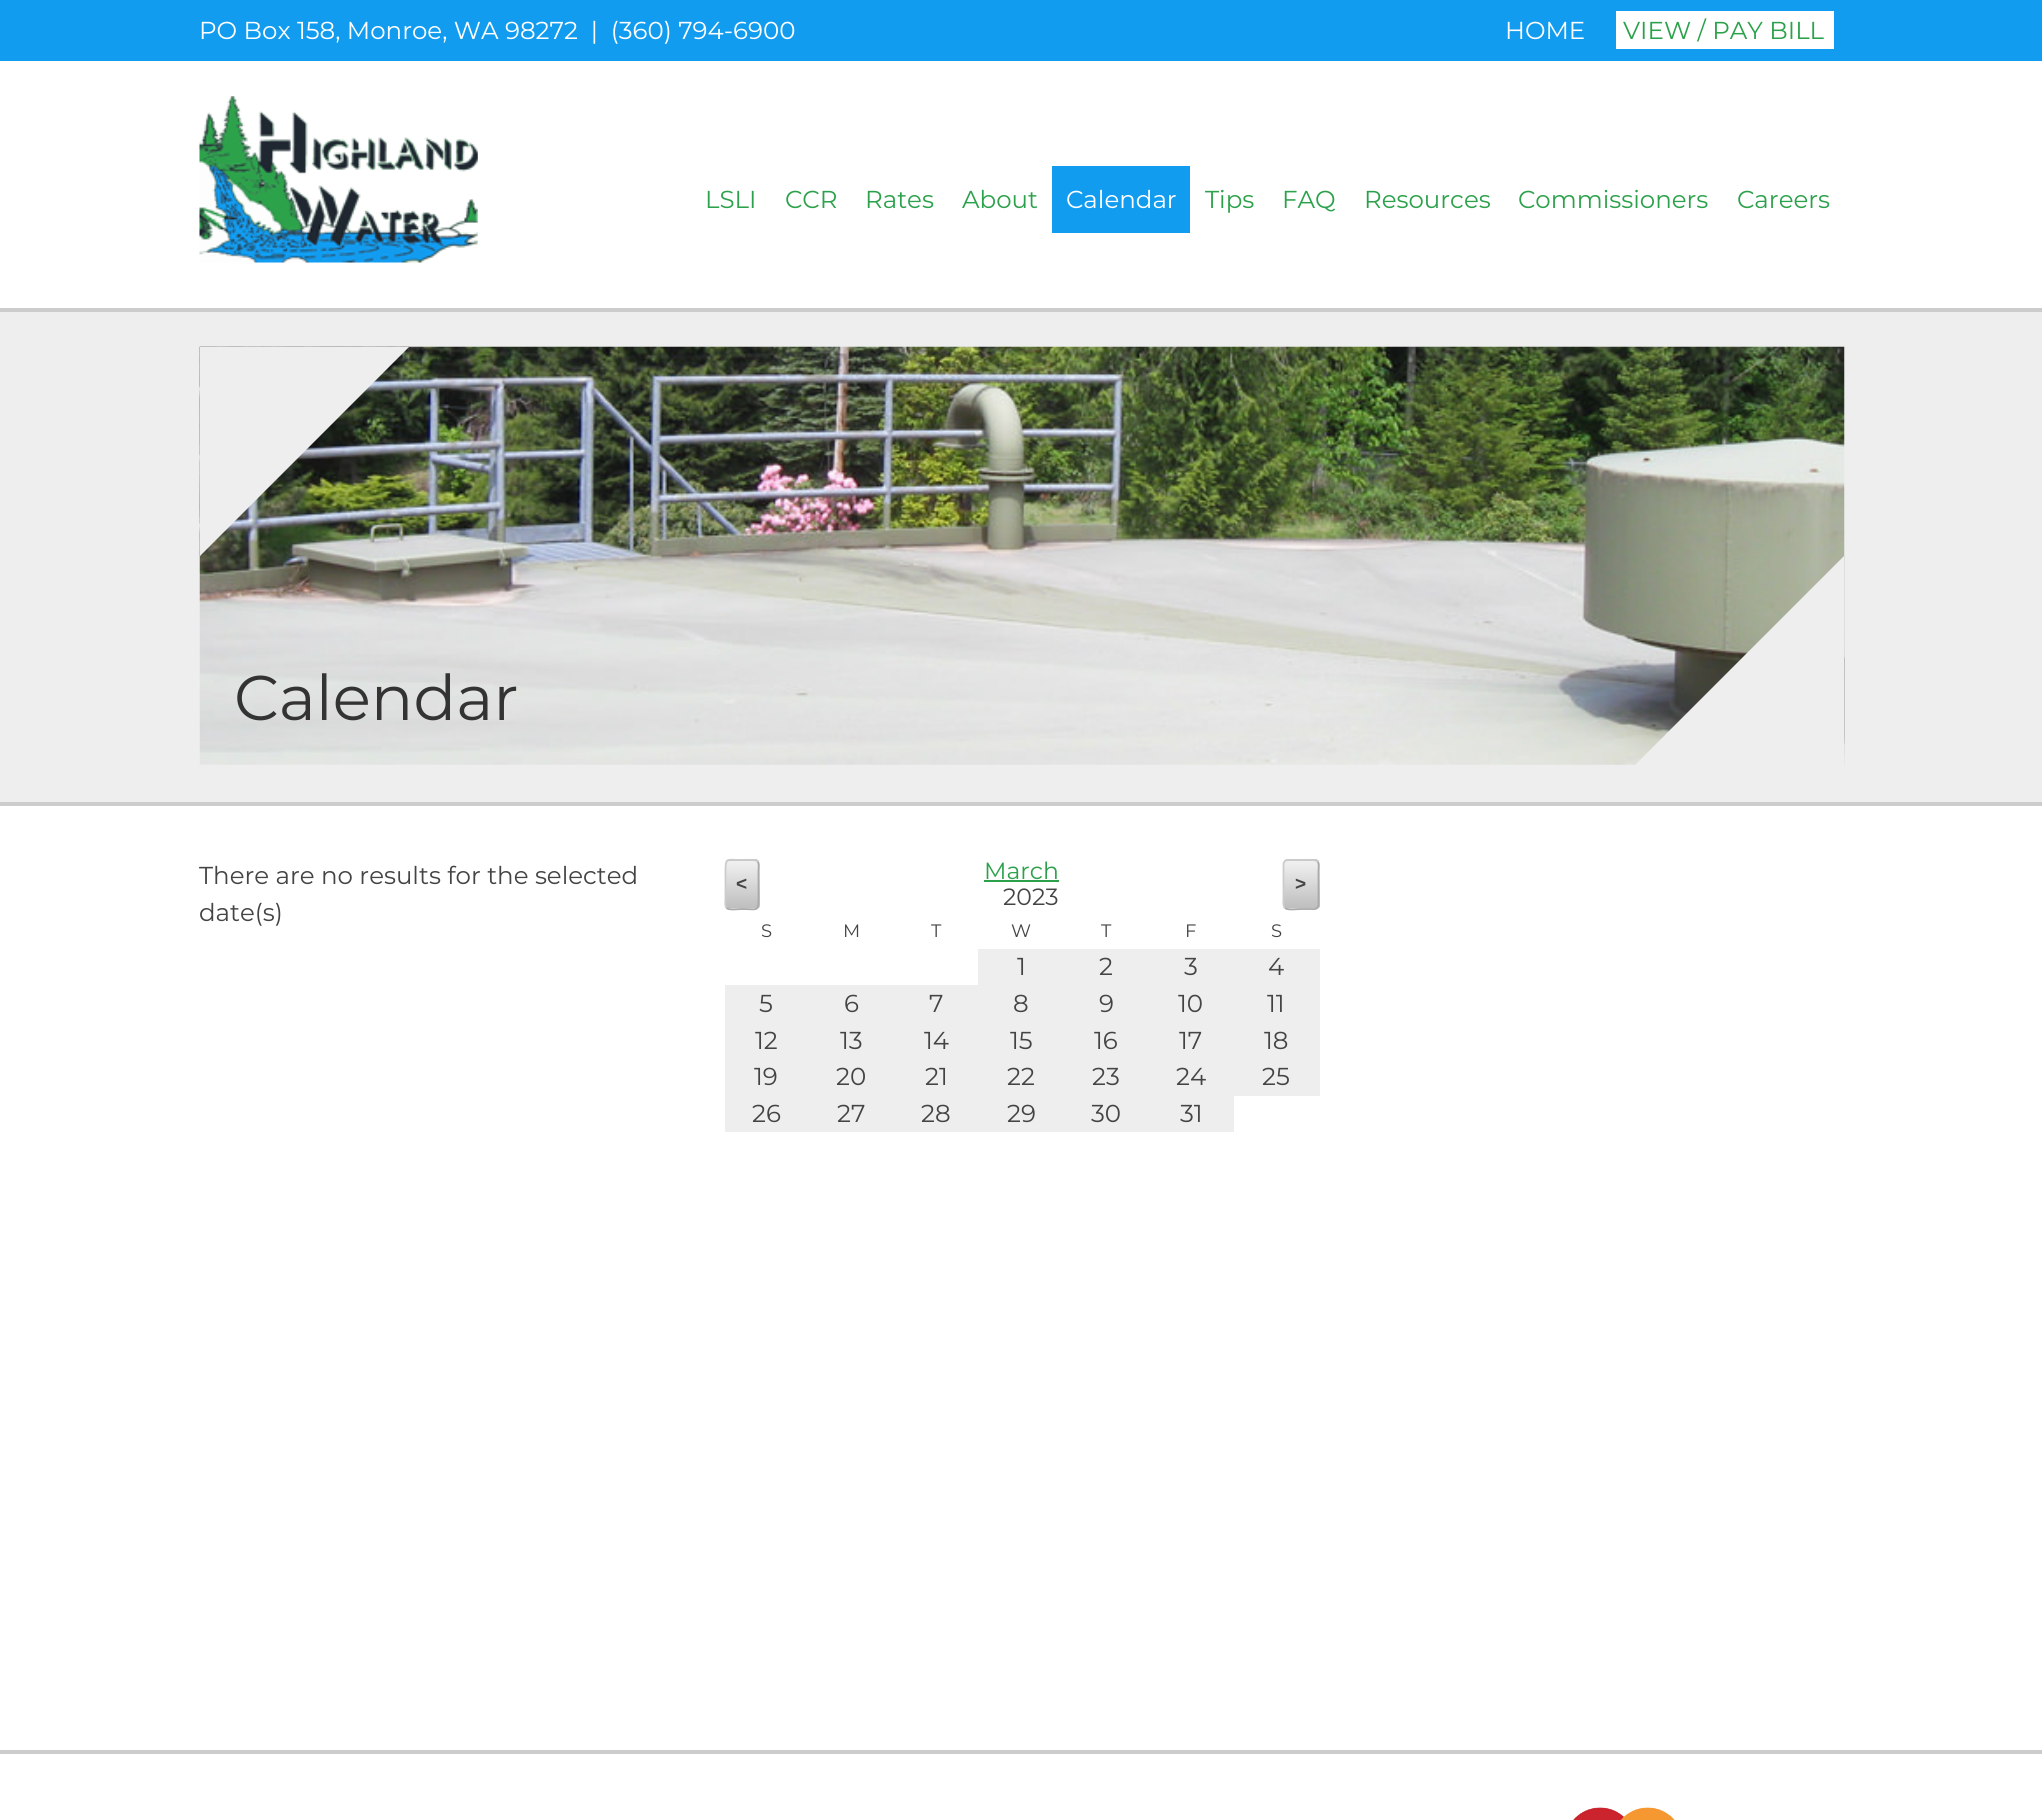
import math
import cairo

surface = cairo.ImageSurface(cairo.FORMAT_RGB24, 2042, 1820)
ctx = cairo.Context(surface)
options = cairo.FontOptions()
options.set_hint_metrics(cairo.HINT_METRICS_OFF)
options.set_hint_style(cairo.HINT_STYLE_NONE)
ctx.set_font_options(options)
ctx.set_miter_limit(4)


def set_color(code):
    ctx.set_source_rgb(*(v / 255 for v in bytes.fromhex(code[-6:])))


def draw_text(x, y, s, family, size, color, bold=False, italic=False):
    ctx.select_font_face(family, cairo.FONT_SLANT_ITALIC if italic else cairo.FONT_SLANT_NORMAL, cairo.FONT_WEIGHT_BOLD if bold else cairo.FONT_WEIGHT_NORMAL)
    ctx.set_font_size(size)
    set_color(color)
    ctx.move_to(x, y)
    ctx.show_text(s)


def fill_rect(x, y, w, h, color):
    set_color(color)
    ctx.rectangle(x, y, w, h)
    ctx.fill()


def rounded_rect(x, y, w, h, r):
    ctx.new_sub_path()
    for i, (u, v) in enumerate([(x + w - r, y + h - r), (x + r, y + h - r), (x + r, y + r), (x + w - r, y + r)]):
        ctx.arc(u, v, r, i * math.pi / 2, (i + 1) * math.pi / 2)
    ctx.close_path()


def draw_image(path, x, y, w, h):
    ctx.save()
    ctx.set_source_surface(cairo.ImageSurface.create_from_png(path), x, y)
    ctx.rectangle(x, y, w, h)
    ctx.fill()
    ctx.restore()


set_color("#ffffff")
ctx.paint()
fill_rect(0, 0, 2042, 61, "#129cf0")
draw_text(199, 39, "PO Box 158, Monroe, WA 98272  |  (360) 794-6900", "Montserrat", 24.5, "#ffffff")
draw_text(1505, 39, "HOME", "Montserrat", 24.5, "#ffffff")
fill_rect(1616, 11, 218, 38, "#ffffff")
draw_text(1623, 39, "VIEW / PAY BILL", "Montserrat", 24.5, "#2ca14b")
fill_rect(0, 308, 2042, 4, "#cccccc")
draw_image("assets/img1.png", 199, 96, 279, 167)
draw_text(705, 208, "LSLI", "Montserrat", 24.5, "#2ca14b")
draw_text(785, 208, "CCR", "Montserrat", 24.5, "#2ca14b")
draw_text(865, 208, "Rates", "Montserrat", 24.5, "#2ca14b")
draw_text(962, 208, "About", "Montserrat", 24.5, "#2ca14b")
fill_rect(1052, 166, 138, 67, "#129cf0")
draw_text(1066, 208, "Calendar", "Montserrat", 24.5, "#ffffff")
draw_text(1205, 208, "Tips", "Montserrat", 24.5, "#2ca14b")
draw_text(1282, 208, "FAQ", "Montserrat", 24.5, "#2ca14b")
draw_text(1364, 208, "Resources", "Montserrat", 24.5, "#2ca14b")
draw_text(1518, 208, "Commissioners", "Montserrat", 24.5, "#2ca14b")
draw_text(1737, 208, "Careers", "Montserrat", 24.5, "#2ca14b")
fill_rect(0, 312, 2042, 490, "#eeeeee")
fill_rect(0, 802, 2042, 4, "#cccccc")
draw_image("assets/img2.png", 199, 346, 1646, 419)
ctx.save()
ctx.rectangle(200, 347, 1645, 420)
ctx.clip()
set_color("#eeeeee")
ctx.new_path()
ctx.move_to(200, 346)
ctx.line_to(410, 346)
ctx.line_to(200, 556)
ctx.close_path()
ctx.fill()
ctx.restore()
draw_text(234, 720, "Calendar", "Montserrat", 63, "#333333")
set_color("#eeeeee")
ctx.new_path()
ctx.move_to(1844, 766)
ctx.line_to(1634, 766)
ctx.line_to(1844, 556)
ctx.close_path()
ctx.fill()
draw_text(199, 884, "There are no results for the selected", "Montserrat", 24.5, "#444444")
draw_text(199, 921, "date(s)", "Montserrat", 24.5, "#444444")
set_color("#eeeeee")
rounded_rect(725, 859, 35, 51, 5)
ctx.fill()
ctx.save()
rounded_rect(725, 859, 35, 51, 5)
ctx.clip()
gradient = cairo.LinearGradient(742, 814, 742, 861)
gradient.add_color_stop_rgba(0, 1, 1, 1, 0.2)
gradient.add_color_stop_rgba(1, 0, 0, 0, 0.2)
ctx.set_source(gradient)
ctx.rectangle(725, 859, 35, 2)
ctx.fill()
gradient = cairo.LinearGradient(742, 861, 742, 908)
gradient.add_color_stop_rgba(0, 1, 1, 1, 0.2)
gradient.add_color_stop_rgba(1, 0, 0, 0, 0.2)
ctx.set_source(gradient)
ctx.rectangle(725, 861, 35, 47)
ctx.fill()
ctx.restore()
ctx.new_path()
ctx.move_to(757.5, 861.5)
ctx.curve_to(759.5, 863.5, 758.5, 869, 758.5, 871)
ctx.line_to(758.5, 898)
ctx.curve_to(758.5, 912.5, 757, 909, 742, 909)
ctx.curve_to(739, 909, 729, 910.5, 726.5, 908)
set_color("#aaaaaa")
ctx.set_line_width(1.8)
ctx.stroke()
ctx.new_path()
ctx.move_to(726.5, 908)
ctx.curve_to(724.5, 905.5, 725.5, 900.5, 725.5, 898)
ctx.line_to(725.5, 871)
ctx.curve_to(725.5, 857, 727, 860, 742, 860)
ctx.curve_to(745, 860, 755, 859, 757.5, 861.5)
set_color("#cccccc")
ctx.stroke()
draw_text(736, 890, "<", "Liberation Sans", 19, "#444444", bold=True)
draw_text(984, 879, "March", "Montserrat", 23.5, "#2ca14b")
fill_rect(984, 880, 75, 2, "#2ca04b")
draw_text(1003, 905, "2023", "Montserrat", 23.5, "#444444")
set_color("#eeeeee")
rounded_rect(1283, 859, 37, 51, 5)
ctx.fill()
ctx.save()
rounded_rect(1283, 859, 37, 51, 5)
ctx.clip()
gradient = cairo.LinearGradient(1301, 814, 1301, 861)
gradient.add_color_stop_rgba(0, 1, 1, 1, 0.2)
gradient.add_color_stop_rgba(1, 0, 0, 0, 0.2)
ctx.set_source(gradient)
ctx.rectangle(1283, 859, 37, 2)
ctx.fill()
gradient = cairo.LinearGradient(1301, 861, 1301, 908)
gradient.add_color_stop_rgba(0, 1, 1, 1, 0.2)
gradient.add_color_stop_rgba(1, 0, 0, 0, 0.2)
ctx.set_source(gradient)
ctx.rectangle(1283, 861, 37, 47)
ctx.fill()
ctx.restore()
ctx.new_path()
ctx.move_to(1317.5, 861.5)
ctx.curve_to(1319.5, 863.5, 1318.5, 869, 1318.5, 871)
ctx.line_to(1318.5, 905.5)
ctx.curve_to(1317.5, 910, 1313, 909, 1310, 909)
ctx.line_to(1301, 909)
ctx.curve_to(1298, 909, 1287.5, 910.5, 1285, 908)
set_color("#aaaaaa")
ctx.stroke()
ctx.new_path()
ctx.move_to(1285, 908)
ctx.curve_to(1282.5, 905.5, 1283.5, 900.5, 1283.5, 898)
ctx.line_to(1283.5, 863.5)
ctx.curve_to(1284.5, 859.5, 1289, 860, 1292.5, 860)
ctx.line_to(1301, 860)
ctx.curve_to(1304.5, 860, 1314.5, 859, 1317.5, 861.5)
set_color("#cccccc")
ctx.stroke()
draw_text(1295, 890, ">", "Liberation Sans", 19, "#444444", bold=True)
draw_text(761, 937, "S", "Montserrat", 18, "#444444")
draw_text(843, 937, "M", "Montserrat", 18, "#444444")
draw_text(931, 937, "T", "Montserrat", 18, "#444444")
draw_text(1011, 937, "W", "Montserrat", 18, "#444444")
draw_text(1101, 937, "T", "Montserrat", 18, "#444444")
draw_text(1185, 937, "F", "Montserrat", 18, "#444444")
draw_text(1271, 937, "S", "Montserrat", 18, "#444444")
fill_rect(978, 949, 342, 36, "#eeeeee")
draw_text(1017, 975, "1", "Montserrat", 24.5, "#444444")
draw_text(1099, 975, "2", "Montserrat", 24.5, "#444444")
draw_text(1184, 975, "3", "Montserrat", 24.5, "#444444")
draw_text(1268, 975, "4", "Montserrat", 24.5, "#444444")
fill_rect(725, 985, 595, 37, "#eeeeee")
draw_text(759, 1012, "5", "Montserrat", 24.5, "#444444")
draw_text(844, 1012, "6", "Montserrat", 24.5, "#444444")
draw_text(929, 1012, "7", "Montserrat", 24.5, "#444444")
draw_text(1013, 1012, "8", "Montserrat", 24.5, "#444444")
draw_text(1099, 1012, "9", "Montserrat", 24.5, "#444444")
draw_text(1178, 1012, "10", "Montserrat", 24.5, "#444444")
draw_text(1267, 1012, "11", "Montserrat", 24.5, "#444444")
fill_rect(725, 1022, 595, 37, "#eeeeee")
draw_text(755, 1049, "12", "Montserrat", 24.5, "#444444")
draw_text(840, 1049, "13", "Montserrat", 24.5, "#444444")
draw_text(924, 1049, "14", "Montserrat", 24.5, "#444444")
draw_text(1010, 1049, "15", "Montserrat", 24.5, "#444444")
draw_text(1094, 1049, "16", "Montserrat", 24.5, "#444444")
draw_text(1179, 1049, "17", "Montserrat", 24.5, "#444444")
draw_text(1264, 1049, "18", "Montserrat", 24.5, "#444444")
fill_rect(725, 1059, 595, 37, "#eeeeee")
draw_text(754, 1085, "19", "Montserrat", 24.5, "#444444")
draw_text(836, 1085, "20", "Montserrat", 24.5, "#444444")
draw_text(925, 1085, "21", "Montserrat", 24.5, "#444444")
draw_text(1007, 1085, "22", "Montserrat", 24.5, "#444444")
draw_text(1092, 1085, "23", "Montserrat", 24.5, "#444444")
draw_text(1176, 1085, "24", "Montserrat", 24.5, "#444444")
draw_text(1262, 1085, "25", "Montserrat", 24.5, "#444444")
fill_rect(725, 1096, 509, 36, "#eeeeee")
draw_text(752, 1122, "26", "Montserrat", 24.5, "#444444")
draw_text(837, 1122, "27", "Montserrat", 24.5, "#444444")
draw_text(921, 1122, "28", "Montserrat", 24.5, "#444444")
draw_text(1007, 1122, "29", "Montserrat", 24.5, "#444444")
draw_text(1091, 1122, "30", "Montserrat", 24.5, "#444444")
draw_text(1180, 1122, "31", "Montserrat", 24.5, "#444444")
fill_rect(0, 1750, 2042, 4, "#cccccc")
draw_image("assets/img3.png", 1573, 1807, 102, 13)
surface.write_to_png("output.png")
